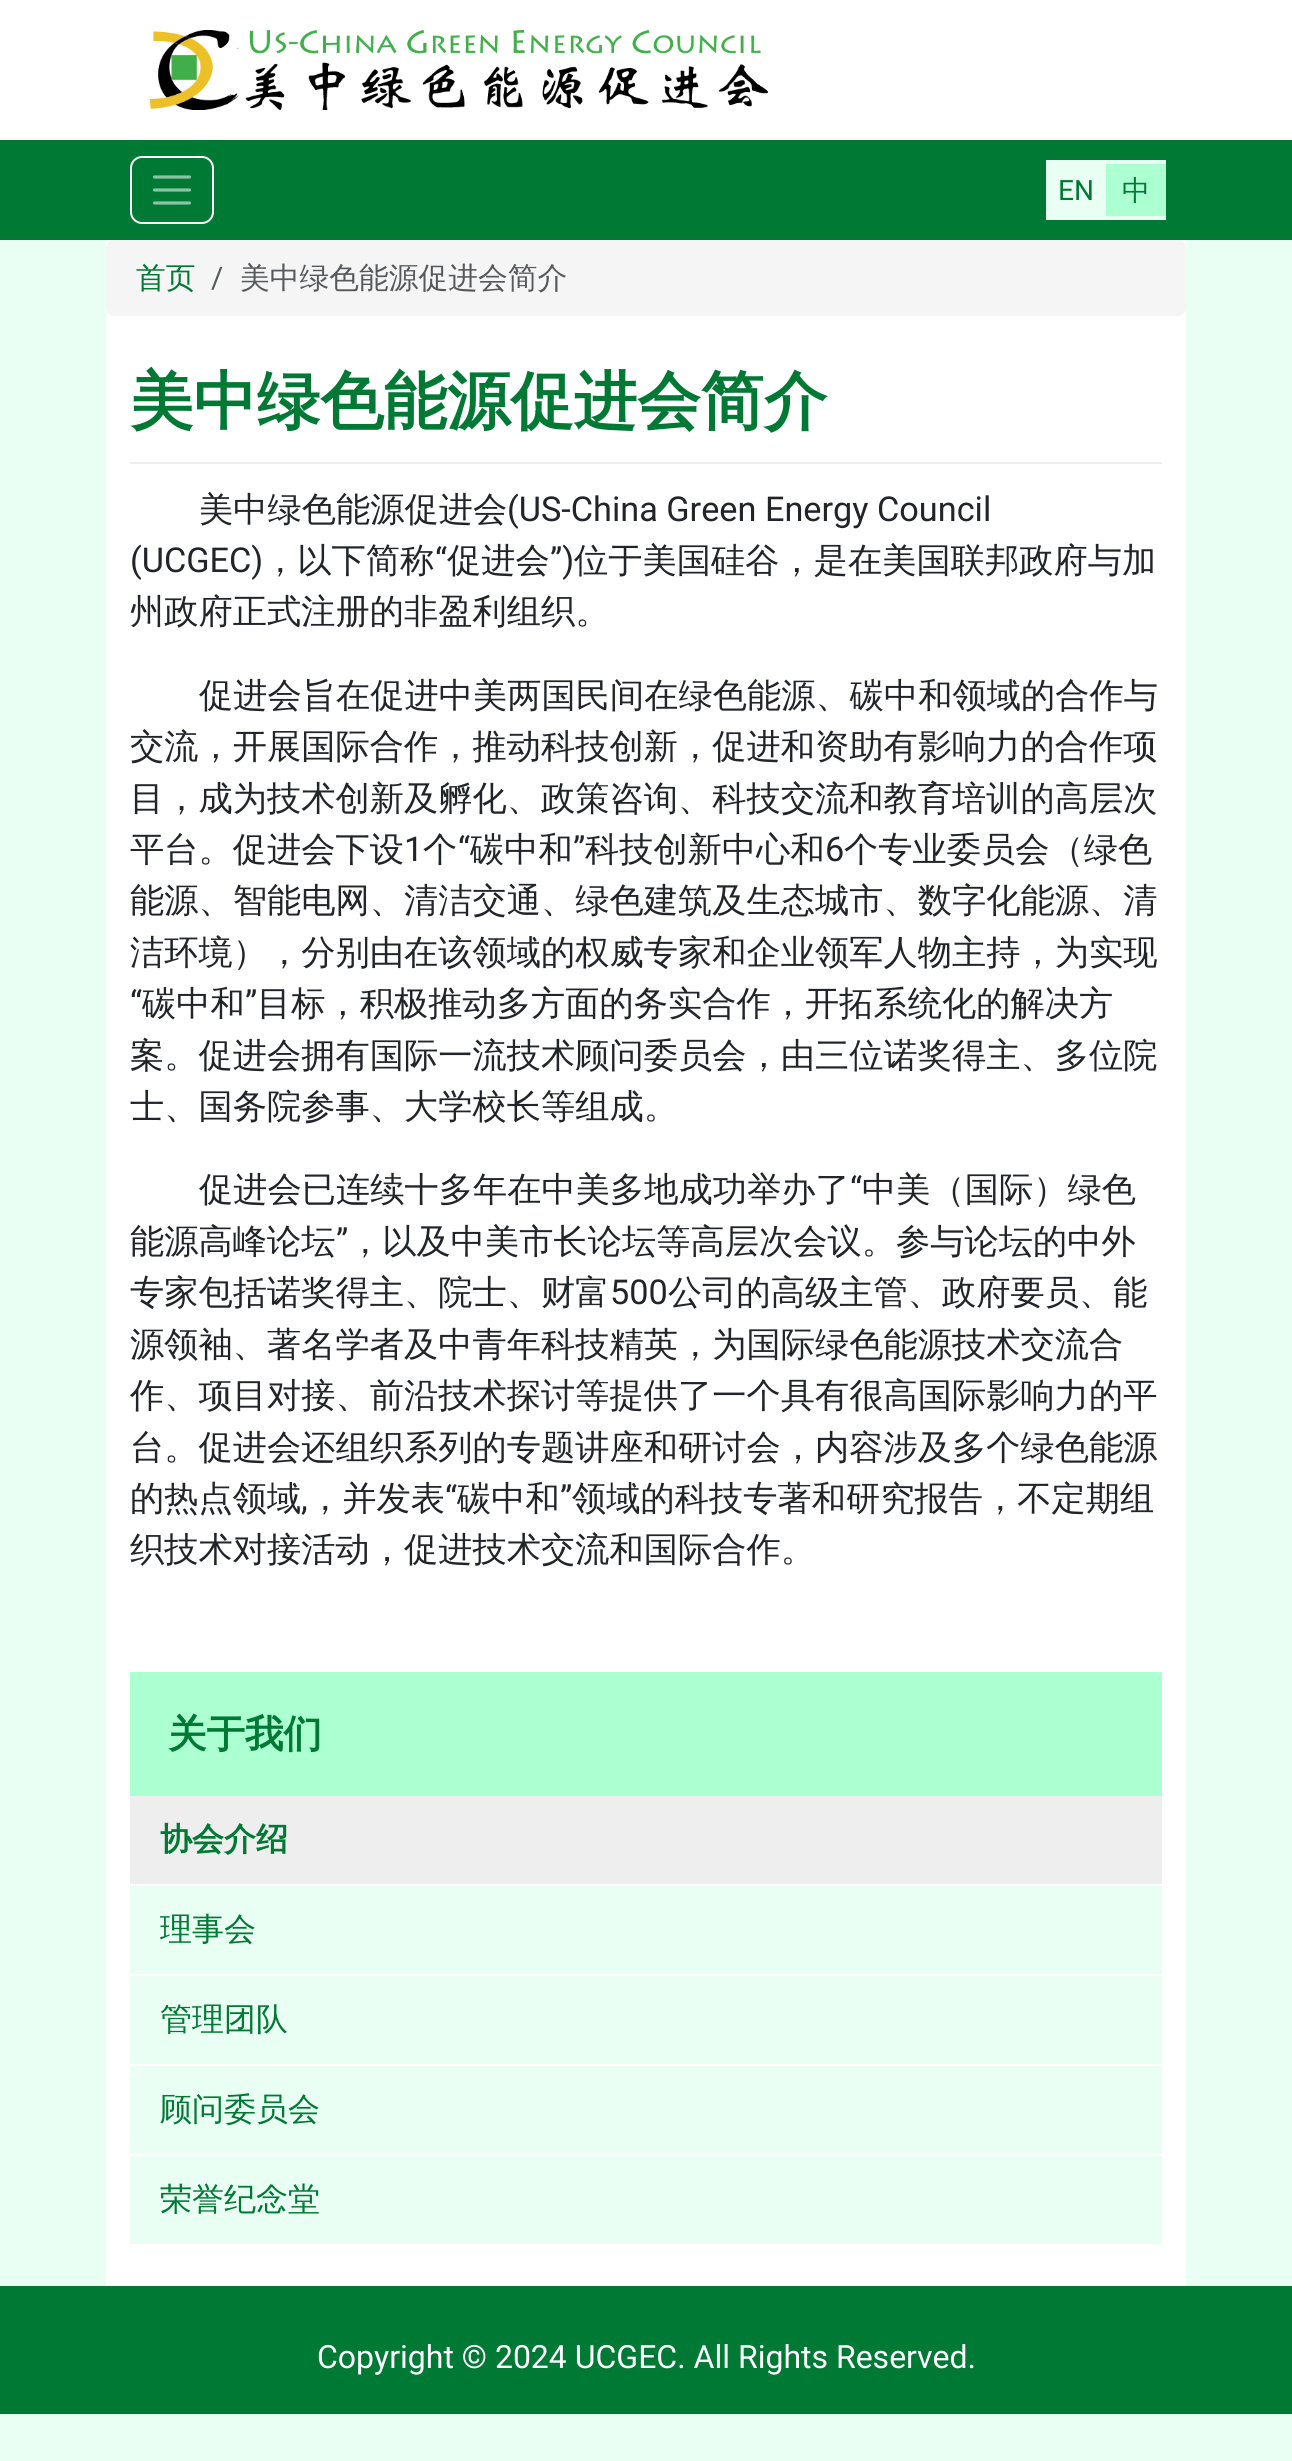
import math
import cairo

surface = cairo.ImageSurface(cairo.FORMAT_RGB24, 1292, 2461)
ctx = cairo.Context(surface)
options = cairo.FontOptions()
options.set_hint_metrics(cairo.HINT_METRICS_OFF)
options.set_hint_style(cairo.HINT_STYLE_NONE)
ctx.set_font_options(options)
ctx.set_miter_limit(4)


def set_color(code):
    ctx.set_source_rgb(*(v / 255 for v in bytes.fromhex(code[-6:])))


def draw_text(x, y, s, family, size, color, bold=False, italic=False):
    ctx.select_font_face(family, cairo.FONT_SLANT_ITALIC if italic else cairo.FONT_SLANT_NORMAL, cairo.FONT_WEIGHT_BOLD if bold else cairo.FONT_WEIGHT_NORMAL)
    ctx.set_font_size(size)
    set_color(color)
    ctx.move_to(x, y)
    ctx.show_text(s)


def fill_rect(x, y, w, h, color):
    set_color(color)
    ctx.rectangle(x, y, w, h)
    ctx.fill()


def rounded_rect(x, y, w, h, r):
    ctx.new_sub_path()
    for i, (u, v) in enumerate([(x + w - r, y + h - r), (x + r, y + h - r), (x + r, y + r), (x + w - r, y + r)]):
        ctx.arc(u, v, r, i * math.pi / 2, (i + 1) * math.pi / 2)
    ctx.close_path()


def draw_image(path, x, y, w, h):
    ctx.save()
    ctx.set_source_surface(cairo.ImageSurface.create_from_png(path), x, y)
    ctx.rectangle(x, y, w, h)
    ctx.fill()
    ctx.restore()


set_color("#e9fff3")
ctx.paint()
fill_rect(0, 140, 1292, 100, "#007935")
rounded_rect(131, 157, 82, 66, 11)
set_color("#ffffff")
ctx.stroke()
ctx.new_path()
ctx.move_to(154.5, 177)
ctx.line_to(189.5, 177)
ctx.move_to(154.5, 190)
ctx.line_to(189.5, 190)
ctx.move_to(154.5, 203)
ctx.line_to(189.5, 203)
set_color("#8cc3a4")
ctx.set_line_width(3.2)
ctx.set_line_cap(cairo.LINE_CAP_ROUND)
ctx.stroke()
fill_rect(0, 0, 1292, 140, "#ffffff")
draw_image("assets/img1.png", 150, 30, 618, 80)
fill_rect(1046, 160, 120, 60, "#e9fff3")
draw_text(1058, 200, "EN", "Roboto", 28, "#007935")
fill_rect(1106, 164, 60, 52, "#acffd0")
draw_text(1122, 200, "中", "WenQuanYi Zen Hei Medium", 28, "#007935")
fill_rect(106, 240, 1080, 2046, "#ffffff")
set_color("#f5f5f5")
rounded_rect(106, 240, 1080, 76, 8)
ctx.fill()
draw_text(136, 288, "首页", "WenQuanYi Zen Hei Medium", 29.75, "#007935")
draw_text(211, 288, "/", "Roboto", 29.75, "#56595c")
draw_text(240, 288, "美中绿色能源促进会简介", "WenQuanYi Zen Hei Medium", 29.75, "#56595c")
fill_rect(130, 462, 1032, 2, "#eeeeee")
draw_text(130, 423, "美中绿色能源促进会简介", "WenQuanYi Zen Hei", 63.4, "#007935", bold=True)
draw_text(199, 521, "美中绿色能源促进会", "WenQuanYi Zen Hei Medium", 34.25, "#212529")
draw_text(507, 521, "(US-China Green Energy Council", "Roboto", 34.25, "#212529")
draw_text(130, 572, "(UCGEC)", "Roboto", 34.25, "#212529")
draw_text(263, 572, "，以下简称", "WenQuanYi Zen Hei Medium", 34.25, "#212529")
draw_text(435, 572, "“", "Roboto", 34.25, "#212529")
draw_text(447, 572, "促进会", "WenQuanYi Zen Hei Medium", 34.25, "#212529")
draw_text(550, 572, "”)", "Roboto", 34.25, "#212529")
draw_text(574, 572, "位于美国硅谷，是在美国联邦政府与加", "WenQuanYi Zen Hei Medium", 34.25, "#212529")
draw_text(130, 623, "州政府正式注册的非盈利组织。", "WenQuanYi Zen Hei Medium", 34.25, "#212529")
draw_text(199, 707, "促进会旨在促进中美两国民间在绿色能源、碳中和领域的合作与", "WenQuanYi Zen Hei Medium", 34.25, "#212529")
draw_text(130, 758, "交流，开展国际合作，推动科技创新，促进和资助有影响力的合作项", "WenQuanYi Zen Hei Medium", 34.25, "#212529")
draw_text(130, 810, "目，成为技术创新及孵化、政策咨询、科技交流和教育培训的高层次", "WenQuanYi Zen Hei Medium", 34.25, "#212529")
draw_text(130, 861, "平台。促进会下设", "WenQuanYi Zen Hei Medium", 34.25, "#212529")
draw_text(404, 861, "1", "Roboto", 34.25, "#212529")
draw_text(423, 861, "个", "WenQuanYi Zen Hei Medium", 34.25, "#212529")
draw_text(458, 861, "“", "Roboto", 34.25, "#212529")
draw_text(470, 861, "碳中和", "WenQuanYi Zen Hei Medium", 34.25, "#212529")
draw_text(573, 861, "”", "Roboto", 34.25, "#212529")
draw_text(585, 861, "科技创新中心和", "WenQuanYi Zen Hei Medium", 34.25, "#212529")
draw_text(825, 861, "6", "Roboto", 34.25, "#212529")
draw_text(844, 861, "个专业委员会（绿色", "WenQuanYi Zen Hei Medium", 34.25, "#212529")
draw_text(130, 912, "能源、智能电网、清洁交通、绿色建筑及生态城市、数字化能源、清", "WenQuanYi Zen Hei Medium", 34.25, "#212529")
draw_text(130, 964, "洁环境），分别由在该领域的权威专家和企业领军人物主持，为实现", "WenQuanYi Zen Hei Medium", 34.25, "#212529")
draw_text(130, 1015, "“", "Roboto", 34.25, "#212529")
draw_text(142, 1015, "碳中和", "WenQuanYi Zen Hei Medium", 34.25, "#212529")
draw_text(245, 1015, "”", "Roboto", 34.25, "#212529")
draw_text(257, 1015, "目标，积极推动多方面的务实合作，开拓系统化的解决方", "WenQuanYi Zen Hei Medium", 34.25, "#212529")
draw_text(130, 1067, "案。促进会拥有国际一流技术顾问委员会，由三位诺奖得主、多位院", "WenQuanYi Zen Hei Medium", 34.25, "#212529")
draw_text(130, 1118, "士、国务院参事、大学校长等组成。", "WenQuanYi Zen Hei Medium", 34.25, "#212529")
draw_text(199, 1201, "促进会已连续十多年在中美多地成功举办了", "WenQuanYi Zen Hei Medium", 34.25, "#212529")
draw_text(850, 1201, "“", "Roboto", 34.25, "#212529")
draw_text(862, 1201, "中美（国际）绿色", "WenQuanYi Zen Hei Medium", 34.25, "#212529")
draw_text(130, 1253, "能源高峰论坛", "WenQuanYi Zen Hei Medium", 34.25, "#212529")
draw_text(336, 1253, "”", "Roboto", 34.25, "#212529")
draw_text(348, 1253, "，以及中美市长论坛等高层次会议。参与论坛的中外", "WenQuanYi Zen Hei Medium", 34.25, "#212529")
draw_text(130, 1304, "专家包括诺奖得主、院士、财富", "WenQuanYi Zen Hei Medium", 34.25, "#212529")
draw_text(610, 1304, "500", "Roboto", 34.25, "#212529")
draw_text(668, 1304, "公司的高级主管、政府要员、能", "WenQuanYi Zen Hei Medium", 34.25, "#212529")
draw_text(130, 1356, "源领袖、著名学者及中青年科技精英，为国际绿色能源技术交流合", "WenQuanYi Zen Hei Medium", 34.25, "#212529")
draw_text(130, 1407, "作、项目对接、前沿技术探讨等提供了一个具有很高国际影响力的平", "WenQuanYi Zen Hei Medium", 34.25, "#212529")
draw_text(130, 1459, "台。促进会还组织系列的专题讲座和研讨会，内容涉及多个绿色能源", "WenQuanYi Zen Hei Medium", 34.25, "#212529")
draw_text(130, 1510, "的热点领域", "WenQuanYi Zen Hei Medium", 34.25, "#212529")
draw_text(308, 1510, "，并发表", "WenQuanYi Zen Hei Medium", 34.25, "#212529")
draw_text(445, 1510, "“", "Roboto", 34.25, "#212529")
draw_text(457, 1510, "碳中和", "WenQuanYi Zen Hei Medium", 34.25, "#212529")
draw_text(560, 1510, "”", "Roboto", 34.25, "#212529")
draw_text(572, 1510, "领域的科技专著和研究报告，不定期组", "WenQuanYi Zen Hei Medium", 34.25, "#212529")
draw_text(301, 1510, ",", "Roboto", 34.25, "#212529")
draw_text(130, 1561, "织技术对接活动，促进技术交流和国际合作。", "WenQuanYi Zen Hei Medium", 34.25, "#212529")
fill_rect(130, 1796, 1032, 88, "#eeeeee")
fill_rect(130, 1672, 1032, 124, "#acffd0")
draw_text(168, 1747, "关于我们", "WenQuanYi Zen Hei", 38.5, "#007935", bold=True)
draw_text(160, 1850, "协会介绍", "WenQuanYi Zen Hei", 32, "#007935", bold=True)
fill_rect(130, 1886, 1032, 88, "#e9fff3")
draw_text(160, 1940, "理事会", "WenQuanYi Zen Hei Medium", 32, "#007935")
fill_rect(130, 1976, 1032, 88, "#e9fff3")
draw_text(160, 2030, "管理团队", "WenQuanYi Zen Hei Medium", 32, "#007935")
fill_rect(130, 2066, 1032, 88, "#e9fff3")
draw_text(160, 2120, "顾问委员会", "WenQuanYi Zen Hei Medium", 32, "#007935")
fill_rect(130, 2156, 1032, 88, "#e9fff3")
draw_text(160, 2210, "荣誉纪念堂", "WenQuanYi Zen Hei Medium", 32, "#007935")
fill_rect(0, 2286, 1292, 128, "#007935")
draw_text(317, 2368, "Copyright © 2024 UCGEC. All Rights Reserved.", "Roboto", 32, "#ffffff")
surface.write_to_png("output.png")
